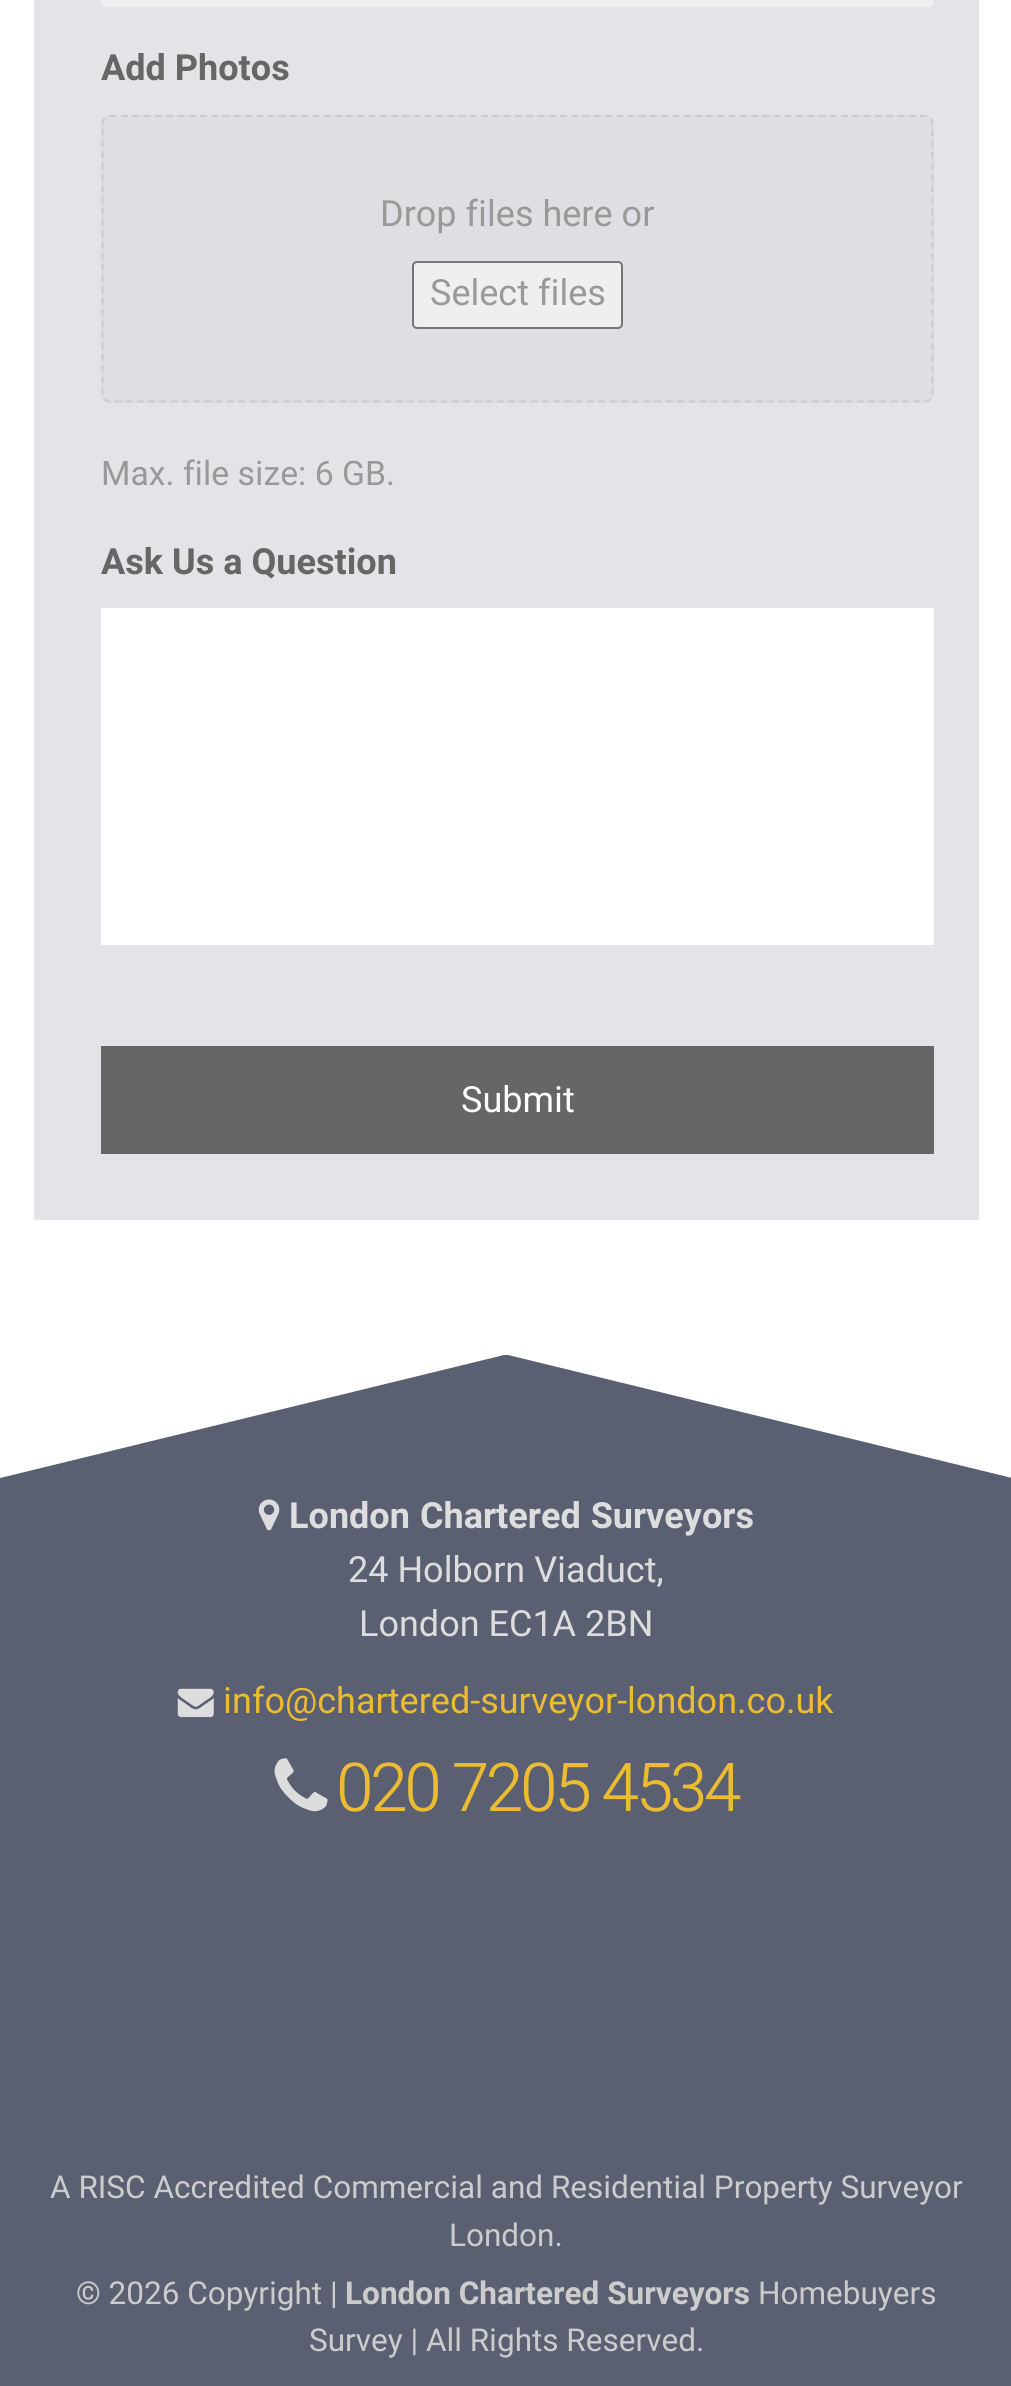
import math
import cairo

surface = cairo.ImageSurface(cairo.FORMAT_RGB24, 1011, 2386)
ctx = cairo.Context(surface)
options = cairo.FontOptions()
options.set_hint_metrics(cairo.HINT_METRICS_OFF)
options.set_hint_style(cairo.HINT_STYLE_NONE)
ctx.set_font_options(options)
ctx.set_miter_limit(4)


def set_color(code):
    ctx.set_source_rgb(*(v / 255 for v in bytes.fromhex(code[-6:])))


def draw_text(x, y, s, family, size, color, bold=False, italic=False):
    ctx.select_font_face(family, cairo.FONT_SLANT_ITALIC if italic else cairo.FONT_SLANT_NORMAL, cairo.FONT_WEIGHT_BOLD if bold else cairo.FONT_WEIGHT_NORMAL)
    ctx.set_font_size(size)
    set_color(color)
    ctx.move_to(x, y)
    ctx.show_text(s)


def draw_spaced(x, y, s, letter, word):
    ctx.move_to(x, y)
    for ch in s:
        ctx.show_text(ch)
        ctx.rel_move_to(letter + word * (ch == ' '), 0)


def fill_rect(x, y, w, h, color):
    set_color(color)
    ctx.rectangle(x, y, w, h)
    ctx.fill()


def rounded_rect(x, y, w, h, r):
    ctx.new_sub_path()
    for i, (u, v) in enumerate([(x + w - r, y + h - r), (x + r, y + h - r), (x + r, y + r), (x + w - r, y + r)]):
        ctx.arc(u, v, r, i * math.pi / 2, (i + 1) * math.pi / 2)
    ctx.close_path()


def draw_image(path, x, y, w, h):
    ctx.save()
    ctx.set_source_surface(cairo.ImageSurface.create_from_png(path), x, y)
    ctx.rectangle(x, y, w, h)
    ctx.fill()
    ctx.restore()


set_color("#ffffff")
ctx.paint()
fill_rect(34, 0, 945, 1220, "#e3e4e8")
set_color("#efefef")
rounded_rect(101, -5, 833, 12, 5)
ctx.fill()
draw_text(101, 80, "Add Photos", "Heebo", 36, "#666666", bold=True)
set_color("#dfdfe3")
rounded_rect(101, 115, 833, 288, 9)
ctx.fill()
ctx.new_path()
ctx.move_to(110, 116)
ctx.line_to(925, 116)
ctx.curve_to(929, 116, 932.5, 119.5, 932.5, 124)
ctx.line_to(932.5, 394)
ctx.curve_to(932.5, 398, 929, 401.5, 925, 401.5)
ctx.line_to(110, 401.5)
ctx.curve_to(106, 401.5, 102.5, 398, 102.5, 394)
ctx.line_to(102.5, 124)
ctx.curve_to(102.5, 119.5, 106, 116, 110, 116)
ctx.close_path()
set_color("#cccccc")
ctx.set_line_width(2.2)
ctx.set_dash([6.75, 4.5])
ctx.stroke()
draw_text(380, 226, "Drop files here or", "Heebo", 36, "#999999")
set_color("#efefef")
rounded_rect(413, 262, 209, 66, 4)
ctx.fill_preserve()
set_color("#767676")
ctx.set_line_width(2)
ctx.set_dash([])
ctx.stroke()
draw_text(430, 305, "Select files", "Heebo", 36, "#999999")
draw_text(101, 485, "Max. file size: 6 GB.", "Heebo", 33.75, "#999999")
draw_text(101, 574, "Ask Us a Question", "Heebo", 36, "#666666", bold=True)
fill_rect(101, 608, 833, 337, "#ffffff")
fill_rect(101, 1046, 833, 108, "#666666")
draw_text(461, 1112, "Submit", "Heebo", 36, "#ffffff")
set_color("#5a5f72")
ctx.new_path()
ctx.move_to(0, 1478)
ctx.line_to(0, 2142)
ctx.line_to(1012, 2142)
ctx.line_to(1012, 1478)
ctx.line_to(508, 1355)
ctx.line_to(504, 1355)
ctx.close_path()
ctx.fill()
draw_image("assets/img1.png", 258, 1499, 22, 32)
ctx.select_font_face("Heebo", cairo.FONT_SLANT_NORMAL, cairo.FONT_WEIGHT_BOLD)
set_color("#dddddd")
draw_spaced(289, 1528, "London Chartered Surveyors", 0, 1)
draw_text(348, 1582, "24 Holborn Viaduct,", "Heebo", 36, "#dddddd")
draw_text(359, 1636, "London EC1A 2BN", "Heebo", 36, "#dddddd")
draw_image("assets/img2.png", 177, 1688, 37, 30)
draw_text(223, 1713, "info@chartered-surveyor-london.co.uk", "Heebo", 36, "#ebbb32")
draw_image("assets/img3.png", 274, 1758, 54, 54)
ctx.select_font_face("Heebo Light")
ctx.set_font_size(67.5)
draw_spaced(336, 1811, "020 7205 4534", -3.4, 0)
fill_rect(0, 2142, 1011, 244, "#5a5f72")
draw_text(50, 2198, "A RISC Accredited Commercial and Residential Property Surveyor", "Heebo", 31.5, "#cccccc")
draw_text(449, 2246, "London.", "Heebo", 31.5, "#cccccc")
draw_text(76, 2304, "© 2026 Copyright |", "Heebo", 31.5, "#cccccc")
draw_text(345, 2304, "London Chartered Surveyors", "Heebo", 31.5, "#cccccc", bold=True)
draw_text(758, 2304, "Homebuyers", "Heebo", 31.5, "#cccccc")
draw_text(309, 2351, "Survey | All Rights Reserved.", "Heebo", 31.5, "#cccccc")
surface.write_to_png("output.png")
